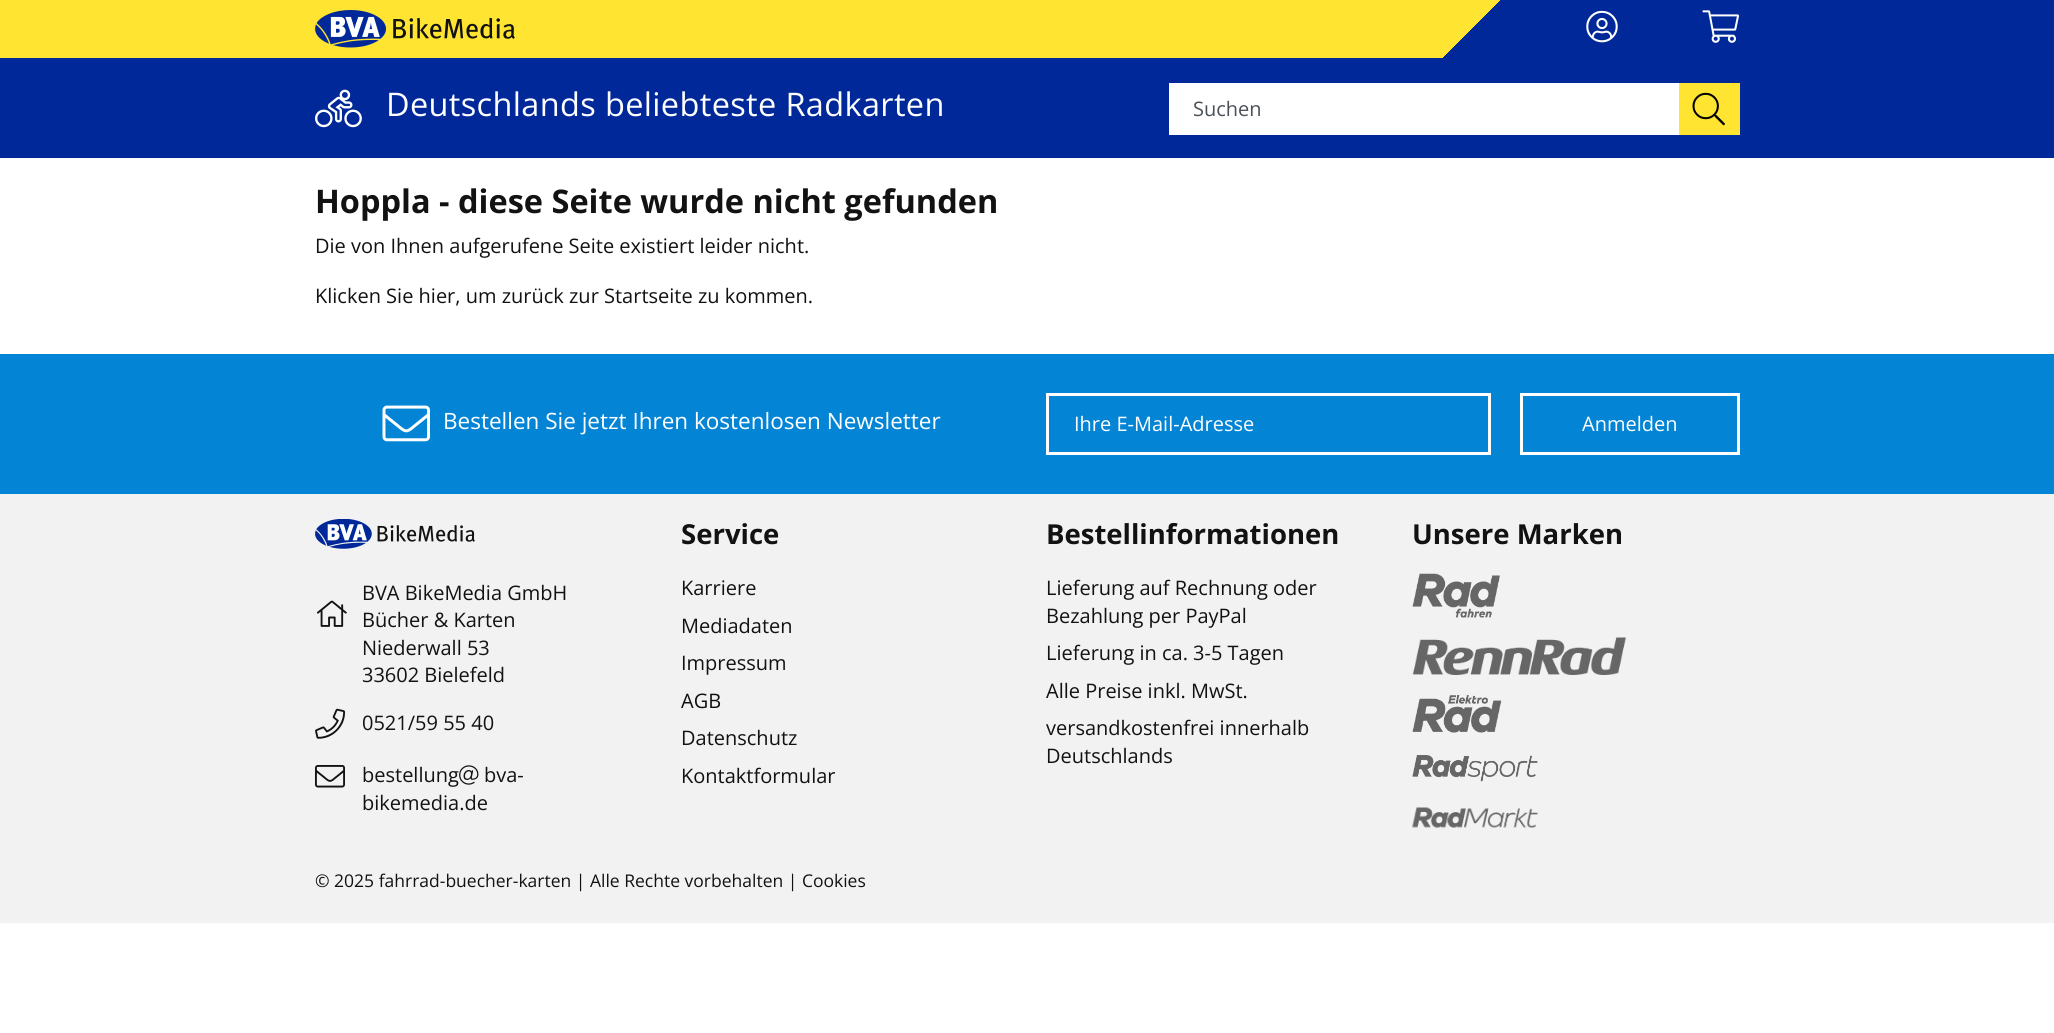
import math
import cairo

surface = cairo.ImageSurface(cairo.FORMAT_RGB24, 2054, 1033)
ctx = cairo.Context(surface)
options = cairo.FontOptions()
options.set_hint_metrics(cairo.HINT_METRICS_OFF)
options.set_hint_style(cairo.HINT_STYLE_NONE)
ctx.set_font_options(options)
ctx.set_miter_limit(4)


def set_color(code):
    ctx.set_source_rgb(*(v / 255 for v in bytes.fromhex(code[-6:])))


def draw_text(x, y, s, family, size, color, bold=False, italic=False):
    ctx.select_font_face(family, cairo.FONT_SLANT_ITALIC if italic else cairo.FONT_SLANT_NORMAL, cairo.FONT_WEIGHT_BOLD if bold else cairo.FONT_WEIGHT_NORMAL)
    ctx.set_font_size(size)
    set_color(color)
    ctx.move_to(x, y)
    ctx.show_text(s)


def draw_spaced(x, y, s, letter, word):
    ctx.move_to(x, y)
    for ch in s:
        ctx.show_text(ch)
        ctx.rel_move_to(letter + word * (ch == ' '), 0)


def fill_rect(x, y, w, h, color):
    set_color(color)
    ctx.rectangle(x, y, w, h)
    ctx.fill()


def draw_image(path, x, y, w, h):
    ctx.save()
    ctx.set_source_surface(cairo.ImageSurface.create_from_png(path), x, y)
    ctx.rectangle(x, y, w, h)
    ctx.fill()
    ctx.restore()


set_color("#ffffff")
ctx.paint()
fill_rect(0, 0, 315, 58, "#ffe432")
fill_rect(1740, 0, 314, 58, "#002899")
gradient = cairo.LinearGradient(1398, 399, 657, -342)
gradient.add_color_stop_rgba(0.2, 0, 0.157, 0.6, 1)
gradient.add_color_stop_rgba(0.2, 1, 0.894, 0.196, 1)
ctx.set_source(gradient)
ctx.rectangle(315, 0, 1425, 58)
ctx.fill()
draw_image("assets/img1.png", 315, 10, 200, 38)
draw_image("assets/img2.png", 1586, 10, 32, 33)
draw_image("assets/img3.png", 1702, 10, 37, 33)
fill_rect(0, 58, 2054, 100, "#002899")
draw_image("assets/img4.png", 315, 89, 47, 39)
ctx.select_font_face("Open Sans")
ctx.set_font_size(32.5)
set_color("#ffffff")
draw_spaced(386, 116, "Deutschlands beliebteste Radkarten", 0.35, 0)
fill_rect(1169, 83, 510, 52, "#ffffff")
draw_text(1193, 116, "Suchen", "Open Sans", 20, "#495057")
fill_rect(1679, 83, 61, 52, "#ffe432")
draw_image("assets/img5.png", 1692, 92, 33, 34)
draw_text(315, 213, "Hoppla - diese Seite wurde nicht gefunden", "Open Sans", 32.5, "#121212", bold=True)
draw_text(315, 253, "Die von Ihnen aufgerufene Seite existiert leider nicht.", "Open Sans", 20, "#121212")
draw_text(315, 303, "Klicken Sie hier, um zurück zur Startseite zu kommen.", "Open Sans", 20, "#121212")
fill_rect(0, 354, 2054, 140, "#0384d5")
draw_image("assets/img6.png", 382, 405, 48, 37)
draw_text(443, 429, "Bestellen Sie jetzt Ihren kostenlosen Newsletter", "Open Sans", 22.5, "#ffffff")
ctx.rectangle(1047.5, 394.5, 442, 59)
ctx.set_line_width(3)
ctx.stroke()
draw_text(1074, 431, "Ihre E-Mail-Adresse", "Open Sans", 20, "#ffffff")
ctx.rectangle(1521.5, 394.5, 217, 59)
ctx.stroke()
draw_text(1582, 431, "Anmelden", "Open Sans", 20, "#ffffff")
fill_rect(0, 494, 2054, 429, "#f2f2f2")
draw_text(681, 544, "Service", "Open Sans", 27.5, "#121212", bold=True)
draw_text(681, 595, "Karriere", "Open Sans", 20, "#121212")
draw_text(681, 633, "Mediadaten", "Open Sans", 20, "#121212")
draw_text(681, 670, "Impressum", "Open Sans", 20, "#121212")
draw_text(681, 708, "AGB", "Open Sans", 20, "#121212")
draw_text(681, 745, "Datenschutz", "Open Sans", 20, "#121212")
draw_text(681, 783, "Kontaktformular", "Open Sans", 20, "#121212")
draw_text(1046, 544, "Bestellinformationen", "Open Sans", 27.5, "#121212", bold=True)
draw_text(1046, 595, "Lieferung auf Rechnung oder", "Open Sans", 20, "#121212")
draw_text(1046, 623, "Bezahlung per PayPal", "Open Sans", 20, "#121212")
draw_text(1046, 660, "Lieferung in ca. 3-5 Tagen", "Open Sans", 20, "#121212")
draw_text(1046, 698, "Alle Preise inkl. MwSt.", "Open Sans", 20, "#121212")
draw_text(1046, 735, "versandkostenfrei innerhalb", "Open Sans", 20, "#121212")
draw_text(1046, 763, "Deutschlands", "Open Sans", 20, "#121212")
draw_text(1412, 544, "Unsere Marken", "Open Sans", 27.5, "#121212", bold=True)
draw_image("assets/img7.png", 1412, 573, 88, 45)
draw_image("assets/img8.png", 1412, 637, 215, 38)
draw_image("assets/img9.png", 1412, 695, 90, 38)
draw_image("assets/img10.png", 1412, 755, 126, 27)
draw_image("assets/img11.png", 1412, 807, 126, 21)
draw_image("assets/img12.png", 315, 519, 160, 30)
draw_image("assets/img13.png", 316, 600, 31, 27)
draw_text(362, 600, "BVA BikeMedia GmbH", "Open Sans", 20, "#121212")
draw_text(362, 627, "Bücher & Karten", "Open Sans", 20, "#121212")
draw_text(362, 655, "Niederwall 53", "Open Sans", 20, "#121212")
draw_text(362, 682, "33602 Bielefeld", "Open Sans", 20, "#121212")
draw_image("assets/img14.png", 315, 708, 31, 31)
draw_text(362, 730, "0521/59 55 40", "Open Sans", 20, "#121212")
draw_image("assets/img15.png", 315, 765, 30, 23)
draw_text(362, 782, "bestellung", "Open Sans", 20, "#121212")
draw_image("assets/img16.png", 459, 765, 20, 20)
draw_text(484, 782, "bva-", "Open Sans", 20, "#121212")
draw_text(362, 810, "bikemedia.de", "Open Sans", 20, "#121212")
draw_text(315, 887, "© 2025 fahrrad-buecher-karten | Alle Rechte vorbehalten | Cookies", "Open Sans", 17.5, "#121212")
surface.write_to_png("output.png")
